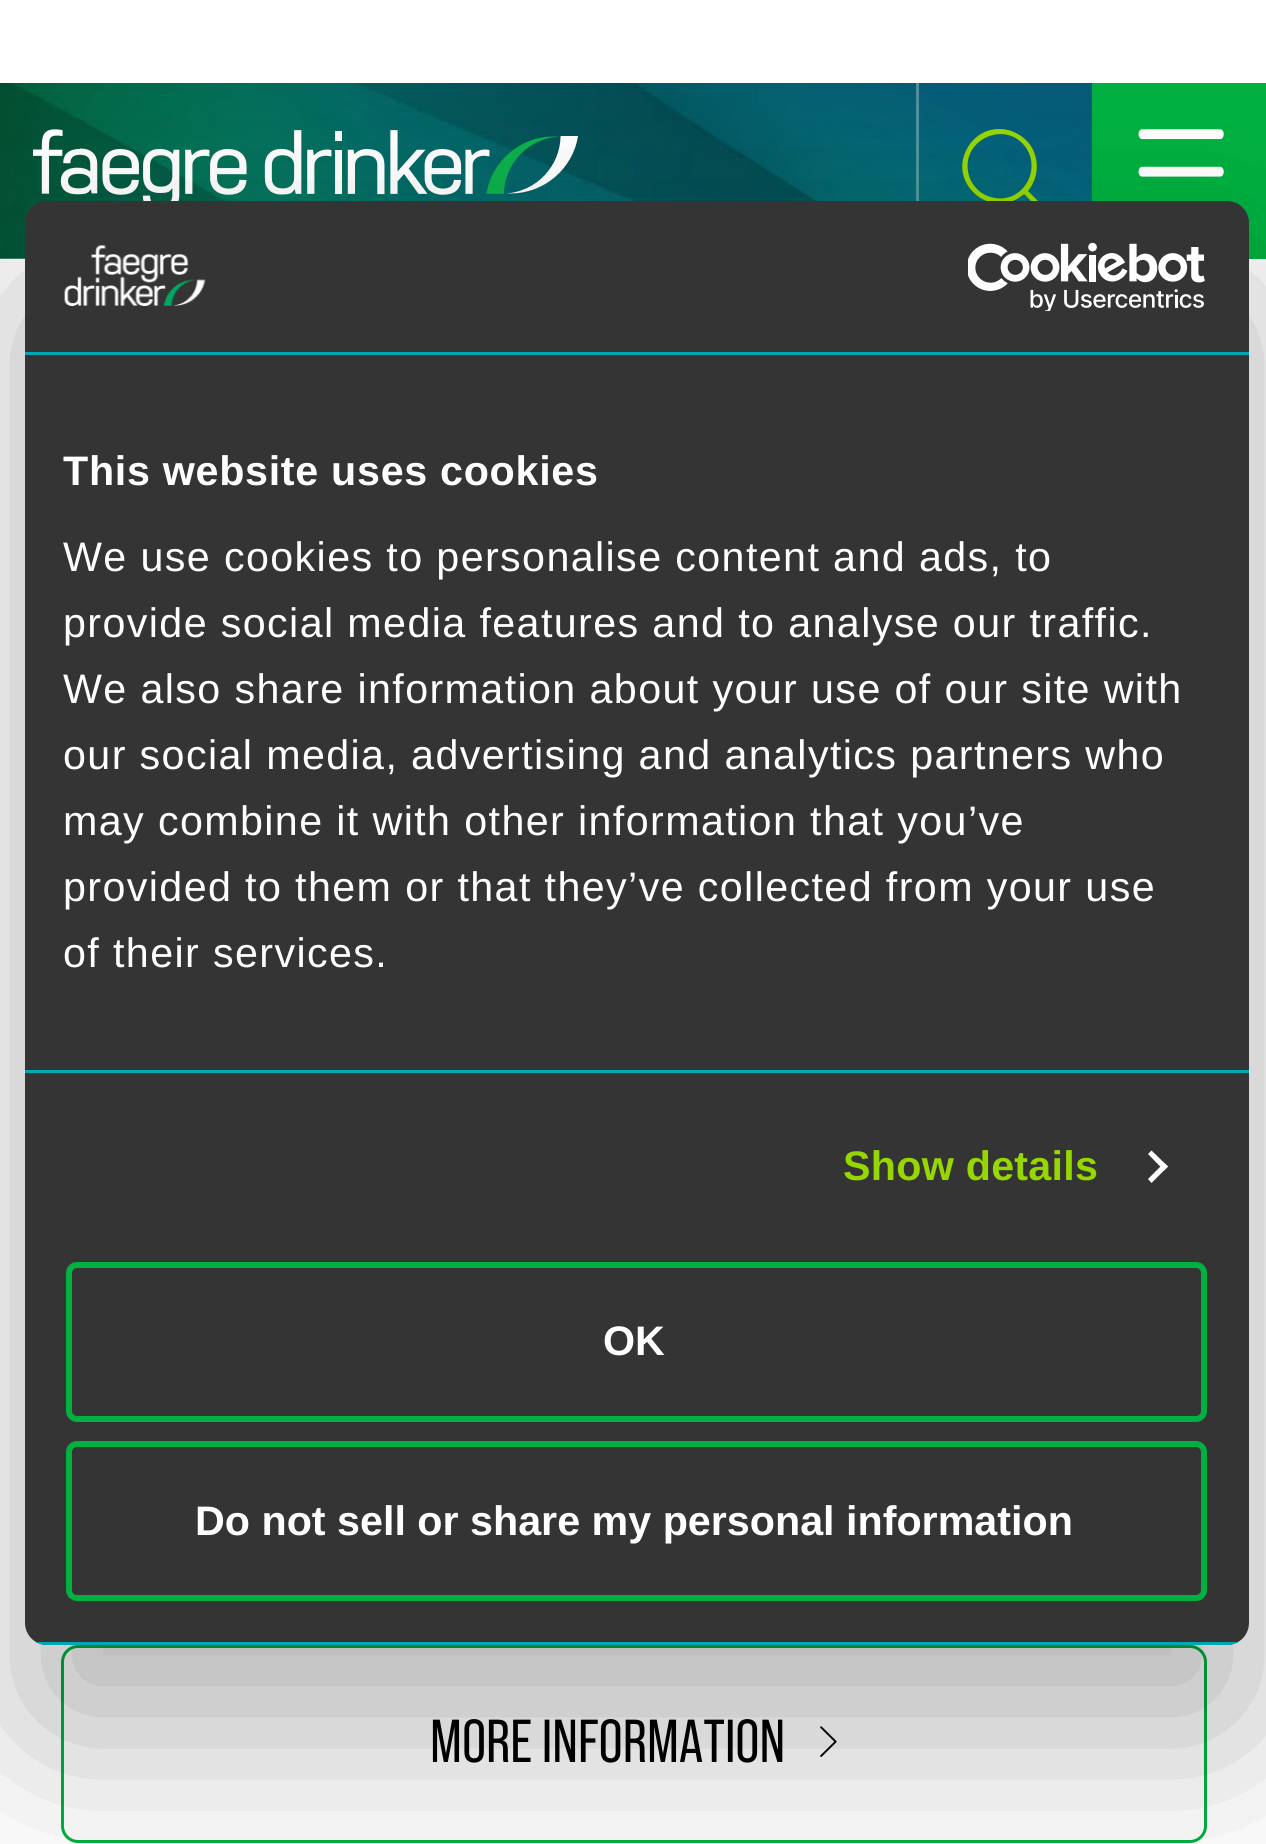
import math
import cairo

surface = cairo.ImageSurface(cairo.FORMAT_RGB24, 1266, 1844)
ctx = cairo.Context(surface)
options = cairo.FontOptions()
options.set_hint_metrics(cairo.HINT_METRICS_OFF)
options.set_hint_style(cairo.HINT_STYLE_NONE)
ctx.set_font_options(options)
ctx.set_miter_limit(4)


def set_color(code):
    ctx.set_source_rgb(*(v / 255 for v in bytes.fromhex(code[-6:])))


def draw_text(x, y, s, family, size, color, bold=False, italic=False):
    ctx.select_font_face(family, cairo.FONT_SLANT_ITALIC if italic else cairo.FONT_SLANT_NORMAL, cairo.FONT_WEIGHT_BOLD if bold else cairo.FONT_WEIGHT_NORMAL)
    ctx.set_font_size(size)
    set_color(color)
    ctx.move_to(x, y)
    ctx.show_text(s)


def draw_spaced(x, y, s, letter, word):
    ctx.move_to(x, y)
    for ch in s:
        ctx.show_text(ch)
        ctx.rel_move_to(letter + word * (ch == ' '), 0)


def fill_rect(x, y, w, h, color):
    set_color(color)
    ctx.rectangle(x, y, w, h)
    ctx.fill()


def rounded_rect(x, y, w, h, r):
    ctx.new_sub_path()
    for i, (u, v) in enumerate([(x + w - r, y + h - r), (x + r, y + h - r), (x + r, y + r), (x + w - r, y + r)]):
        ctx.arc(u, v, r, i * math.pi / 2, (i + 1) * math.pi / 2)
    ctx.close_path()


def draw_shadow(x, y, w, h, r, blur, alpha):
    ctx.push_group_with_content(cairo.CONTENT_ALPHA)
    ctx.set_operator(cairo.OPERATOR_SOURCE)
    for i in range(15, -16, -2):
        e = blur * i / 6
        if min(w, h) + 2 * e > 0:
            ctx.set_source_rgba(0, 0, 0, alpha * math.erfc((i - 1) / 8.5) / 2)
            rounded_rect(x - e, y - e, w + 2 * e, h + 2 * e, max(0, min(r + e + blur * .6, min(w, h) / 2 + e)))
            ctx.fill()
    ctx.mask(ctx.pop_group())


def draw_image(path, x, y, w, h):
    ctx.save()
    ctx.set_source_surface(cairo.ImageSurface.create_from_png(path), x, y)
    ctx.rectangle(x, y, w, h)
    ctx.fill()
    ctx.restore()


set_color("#ffffff")
ctx.paint()
draw_image("assets/img3.png", 0, 83, 1092, 176)
draw_image("assets/img4.png", 33, 129, 545, 72)
ctx.set_source_rgba(1, 1, 1, 0.3)
ctx.rectangle(916, 83, 3, 118)
ctx.fill()
set_color("#97d700")
ctx.new_path()
ctx.move_to(1047, 210)
ctx.line_to(1028, 191)
ctx.curve_to(1042, 174, 1039, 148, 1021, 136)
ctx.curve_to(1011, 129, 999, 127, 987, 131)
ctx.curve_to(979, 134, 972, 140, 968, 147)
ctx.curve_to(946, 183, 992, 222, 1024, 194)
ctx.line_to(1040, 210)
ctx.curve_to(1041, 211, 1045, 216, 1047, 214)
ctx.curve_to(1048, 213, 1048, 211, 1047, 210)
ctx.close_path()
ctx.move_to(977, 189)
ctx.curve_to(972, 184, 969, 178, 968, 171)
ctx.curve_to(963, 141, 1001, 122, 1022, 143)
ctx.curve_to(1044, 165, 1025, 203, 995, 198)
ctx.curve_to(988, 197, 982, 194, 977, 189)
ctx.close_path()
ctx.fill()
fill_rect(1092, 83, 174, 176, "#00b140")
draw_image("assets/img5.png", 1138, 129, 86, 48)
rounded_rect(62.5, 1646.5, 1143, 195, 15.5)
ctx.set_line_width(3)
ctx.stroke()
draw_image("assets/img6.png", 820, 1726, 17, 31)
ctx.save()
ctx.set_fill_rule(cairo.FILL_RULE_EVEN_ODD)
ctx.new_path()
ctx.move_to(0, 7)
ctx.line_to(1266, 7)
ctx.line_to(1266, 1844)
ctx.line_to(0, 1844)
ctx.close_path()
ctx.move_to(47, 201)
ctx.line_to(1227, 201)
ctx.curve_to(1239, 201, 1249, 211, 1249, 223)
ctx.line_to(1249, 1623)
ctx.curve_to(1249, 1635, 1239, 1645, 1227, 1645)
ctx.line_to(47, 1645)
ctx.curve_to(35, 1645, 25, 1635, 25, 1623)
ctx.line_to(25, 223)
ctx.curve_to(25, 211, 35, 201, 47, 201)
ctx.close_path()
ctx.clip()
set_color("#000000")
draw_shadow(25, 289, 1224, 1444, 22, 93.5, 0.3)
ctx.restore()
set_color("#343434")
rounded_rect(25, 201, 1224, 1444, 22)
ctx.fill()
fill_rect(25, 352, 1224, 3, "#00a7b5")
draw_image("assets/img1.png", 64, 245, 142, 61)
draw_image("assets/img2.png", 968, 242, 237, 69)
fill_rect(25, 1070, 1224, 3, "#00a7b5")
ctx.select_font_face("Liberation Sans", cairo.FONT_SLANT_NORMAL, cairo.FONT_WEIGHT_BOLD)
ctx.set_font_size(41.25)
set_color("#ffffff")
draw_spaced(63, 485, "This website uses cookies", 0.7, 0)
ctx.select_font_face("Liberation Sans")
draw_spaced(63, 571, "We use cookies to personalise content and ads, to", 1.38, 0)
draw_spaced(63, 637, "provide social media features and to analyse our traffic.", 1.38, 0)
draw_spaced(63, 703, "We also share information about your use of our site with", 1.38, 0)
draw_spaced(63, 769, "our social media, advertising and analytics partners who", 1.38, 0)
draw_spaced(63, 835, "may combine it with other information that you’ve", 1.38, 0)
draw_spaced(63, 901, "provided to them or that they’ve collected from your use", 1.38, 0)
draw_spaced(63, 967, "of their services.", 1.38, 0)
ctx.select_font_face("Liberation Sans", cairo.FONT_SLANT_NORMAL, cairo.FONT_WEIGHT_BOLD)
set_color("#97d700")
draw_spaced(843, 1180, "Show details", 0.25, 0)
set_color("#ffffff")
ctx.new_path()
ctx.move_to(1151.5, 1150.5)
ctx.line_to(1168, 1166.5)
ctx.line_to(1164, 1170.5)
ctx.line_to(1148, 1154)
ctx.close_path()
ctx.fill()
ctx.new_path()
ctx.move_to(1164, 1163)
ctx.line_to(1168, 1166.5)
ctx.line_to(1151.5, 1183)
ctx.line_to(1148, 1179)
ctx.close_path()
ctx.fill()
ctx.save()
rounded_rect(25, 201, 1224, 1444, 22)
ctx.clip()
fill_rect(36, 1642, 1202, 3, "#00a7b5")
ctx.restore()
rounded_rect(69, 1265, 1135, 154, 8)
set_color("#00b140")
ctx.set_line_width(6)
ctx.stroke()
draw_text(603, 1355, "OK", "Liberation Sans", 41.25, "#ffffff", bold=True)
rounded_rect(69, 1444, 1135, 154, 8)
set_color("#00b140")
ctx.stroke()
draw_text(195, 1535, "Do not sell or share my personal information", "Liberation Sans", 41.25, "#ffffff", bold=True)
draw_text(430, 1762, "MORE INFORMATION", "Bebas Neue", 60.5, "#000000")
surface.write_to_png("output.png")
